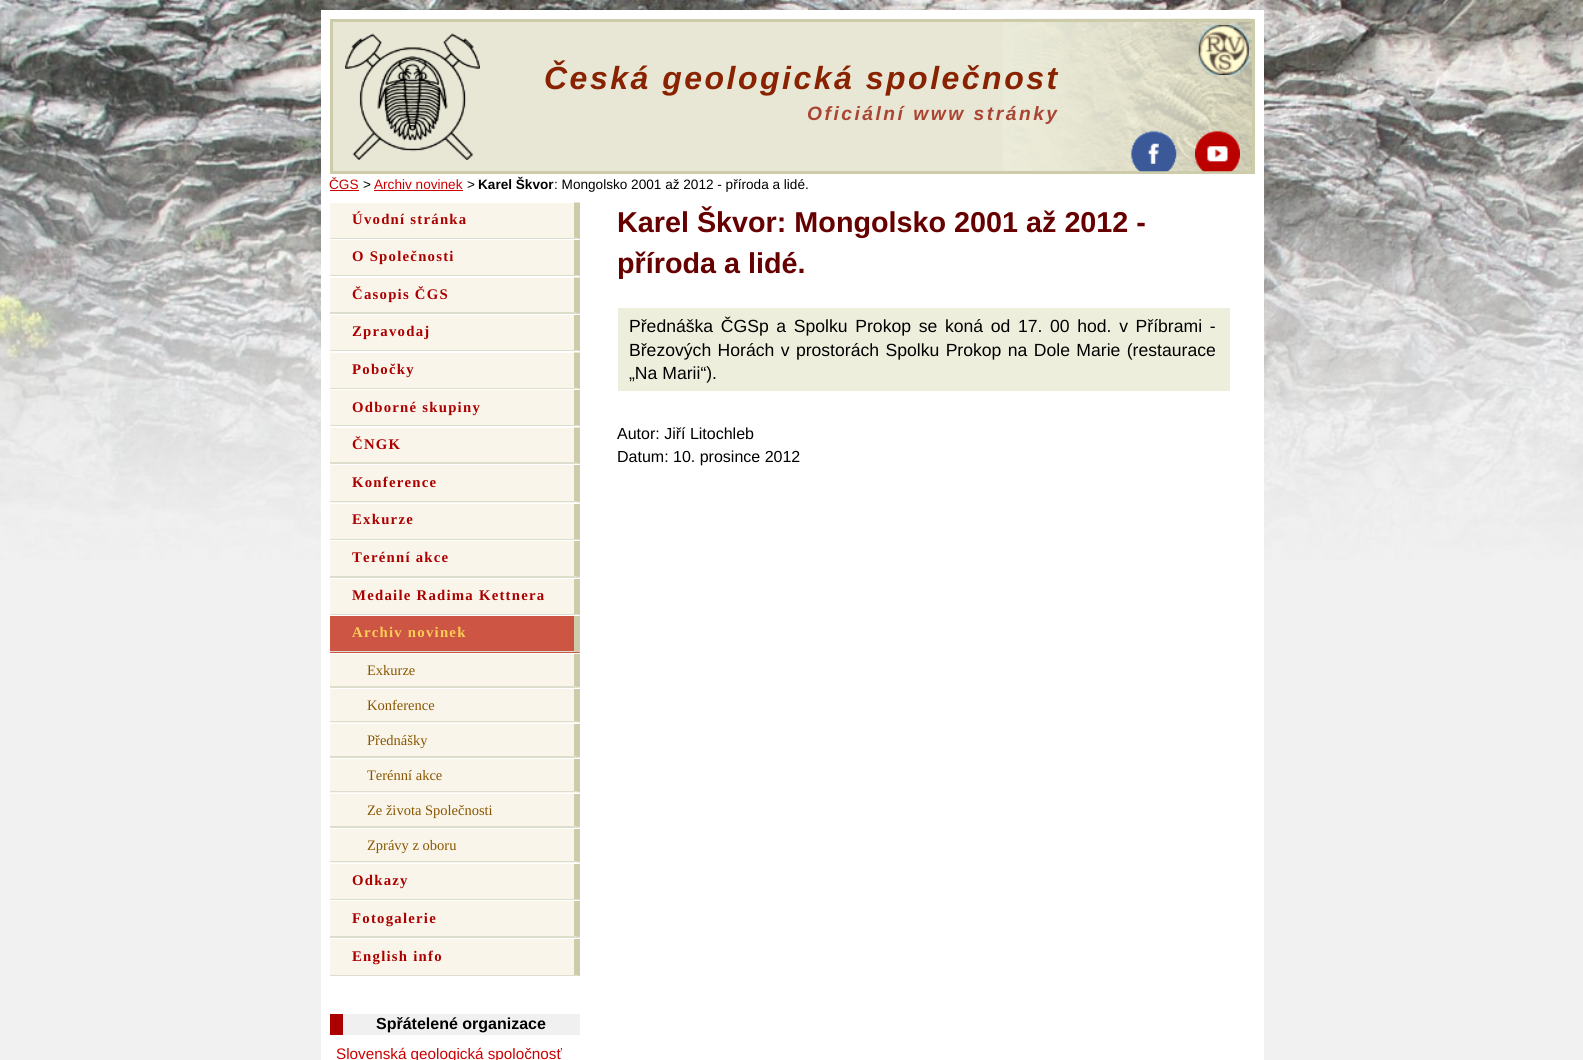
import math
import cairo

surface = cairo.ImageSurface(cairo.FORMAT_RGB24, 1583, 1060)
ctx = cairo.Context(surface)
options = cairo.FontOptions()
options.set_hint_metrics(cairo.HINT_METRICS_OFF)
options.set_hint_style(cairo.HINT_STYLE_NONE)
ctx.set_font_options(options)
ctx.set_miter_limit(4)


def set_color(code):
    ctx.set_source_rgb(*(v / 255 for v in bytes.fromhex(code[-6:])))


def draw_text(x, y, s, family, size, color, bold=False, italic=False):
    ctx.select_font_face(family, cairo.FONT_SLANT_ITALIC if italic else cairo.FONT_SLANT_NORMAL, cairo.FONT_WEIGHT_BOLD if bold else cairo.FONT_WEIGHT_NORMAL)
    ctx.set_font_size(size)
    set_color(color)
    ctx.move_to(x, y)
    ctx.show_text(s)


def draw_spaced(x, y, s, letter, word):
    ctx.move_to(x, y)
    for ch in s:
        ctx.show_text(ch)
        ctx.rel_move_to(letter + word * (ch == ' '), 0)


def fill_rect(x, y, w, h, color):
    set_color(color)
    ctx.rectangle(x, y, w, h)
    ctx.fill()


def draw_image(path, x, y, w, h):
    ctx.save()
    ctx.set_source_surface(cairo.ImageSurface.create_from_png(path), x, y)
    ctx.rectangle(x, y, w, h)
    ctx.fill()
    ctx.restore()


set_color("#f1f1f1")
ctx.paint()
draw_image("assets/img1.png", 0, 0, 1583, 560)
fill_rect(321, 10, 943, 1050, "#ffffff")
fill_rect(333, 22, 670, 149, "#e8e7d5")
draw_image("assets/img3.png", 1002, 18, 251, 153)
ctx.rectangle(331.5, 20.5, 922, 152)
set_color("#ccccaa")
ctx.set_line_width(3)
ctx.stroke()
draw_image("assets/img2.png", 1198, 25, 51, 50)
draw_image("assets/img4.png", 345, 33, 135, 127)
ctx.select_font_face("Liberation Sans", cairo.FONT_SLANT_ITALIC, cairo.FONT_WEIGHT_BOLD)
ctx.set_font_size(32)
set_color("#882200")
draw_spaced(544, 89, "Česká geologická společnost", 2.5, 0)
ctx.set_font_size(19.25)
set_color("#aa4433")
draw_spaced(807, 120, "Oficiální www stránky", 2.5, 0)
draw_image("assets/img5.png", 1131, 131, 46, 41)
draw_image("assets/img6.png", 1195, 131, 45, 41)
draw_text(329, 189, "ČGS", "Liberation Sans", 13.6, "#cc0000")
fill_rect(330, 190, 29, 1, "#cc0000")
draw_text(363, 189, ">", "Liberation Sans", 13.6, "#000000")
draw_text(374, 189, "Archiv novinek", "Liberation Sans", 13.6, "#cc0000")
fill_rect(374, 190, 89, 1, "#cc0000")
draw_text(467, 189, ">", "Liberation Sans", 13.6, "#000000")
draw_text(478, 189, "Karel Škvor", "Liberation Sans", 13.6, "#000000", bold=True)
draw_text(554, 189, ": Mongolsko 2001 až 2012 - příroda a lidé.", "Liberation Sans", 13.6, "#000000")
fill_rect(330, 203, 250, 36, "#faf5ea")
set_color("#ccccaa")
ctx.new_path()
ctx.move_to(580, 202.5)
ctx.line_to(580, 239)
ctx.line_to(574, 237.5)
ctx.line_to(574, 202.5)
ctx.close_path()
ctx.fill()
set_color("#ddddcc")
ctx.new_path()
ctx.move_to(580, 239)
ctx.line_to(330, 239)
ctx.line_to(330, 238)
ctx.line_to(574, 238)
ctx.close_path()
ctx.fill()
ctx.select_font_face("Liberation Serif", cairo.FONT_SLANT_NORMAL, cairo.FONT_WEIGHT_BOLD)
ctx.set_font_size(14.75)
set_color("#aa0000")
draw_spaced(352, 224, "Úvodní stránka", 1.25, 0)
fill_rect(330, 240, 250, 36, "#faf5ea")
set_color("#ccccaa")
ctx.new_path()
ctx.move_to(580, 240)
ctx.line_to(580, 276)
ctx.line_to(574, 275)
ctx.line_to(574, 240)
ctx.close_path()
ctx.fill()
set_color("#ddddcc")
ctx.new_path()
ctx.move_to(580, 276)
ctx.line_to(330, 276)
ctx.line_to(330, 275)
ctx.line_to(574, 275)
ctx.close_path()
ctx.fill()
set_color("#aa0000")
draw_spaced(352, 261, "O Společnosti", 1.25, 0)
fill_rect(330, 278, 250, 36, "#faf5ea")
set_color("#ccccaa")
ctx.new_path()
ctx.move_to(580, 277.5)
ctx.line_to(580, 314)
ctx.line_to(574, 312.5)
ctx.line_to(574, 277.5)
ctx.close_path()
ctx.fill()
set_color("#ddddcc")
ctx.new_path()
ctx.move_to(580, 314)
ctx.line_to(330, 314)
ctx.line_to(330, 312)
ctx.line_to(574, 312)
ctx.close_path()
ctx.fill()
set_color("#aa0000")
draw_spaced(352, 299, "Časopis ČGS", 1.25, 0)
fill_rect(330, 315, 250, 36, "#faf5ea")
set_color("#ccccaa")
ctx.new_path()
ctx.move_to(580, 315)
ctx.line_to(580, 351)
ctx.line_to(574, 350)
ctx.line_to(574, 315)
ctx.close_path()
ctx.fill()
set_color("#ddddcc")
ctx.new_path()
ctx.move_to(580, 351)
ctx.line_to(330, 351)
ctx.line_to(330, 350)
ctx.line_to(574, 350)
ctx.close_path()
ctx.fill()
set_color("#aa0000")
draw_spaced(352, 336, "Zpravodaj", 1.25, 0)
fill_rect(330, 353, 250, 36, "#faf5ea")
set_color("#ccccaa")
ctx.new_path()
ctx.move_to(580, 352.5)
ctx.line_to(580, 389)
ctx.line_to(574, 387.5)
ctx.line_to(574, 352.5)
ctx.close_path()
ctx.fill()
set_color("#ddddcc")
ctx.new_path()
ctx.move_to(580, 389)
ctx.line_to(330, 389)
ctx.line_to(330, 388)
ctx.line_to(574, 388)
ctx.close_path()
ctx.fill()
set_color("#aa0000")
draw_spaced(352, 374, "Pobočky", 1.25, 0)
fill_rect(330, 390, 250, 36, "#faf5ea")
set_color("#ccccaa")
ctx.new_path()
ctx.move_to(580, 390)
ctx.line_to(580, 426)
ctx.line_to(574, 425)
ctx.line_to(574, 390)
ctx.close_path()
ctx.fill()
set_color("#ddddcc")
ctx.new_path()
ctx.move_to(580, 426)
ctx.line_to(330, 426)
ctx.line_to(330, 425)
ctx.line_to(574, 425)
ctx.close_path()
ctx.fill()
set_color("#aa0000")
draw_spaced(352, 412, "Odborné skupiny", 1.25, 0)
fill_rect(330, 428, 250, 36, "#faf5ea")
set_color("#ccccaa")
ctx.new_path()
ctx.move_to(580, 427.5)
ctx.line_to(580, 464)
ctx.line_to(574, 462.5)
ctx.line_to(574, 427.5)
ctx.close_path()
ctx.fill()
set_color("#ddddcc")
ctx.new_path()
ctx.move_to(580, 464)
ctx.line_to(330, 464)
ctx.line_to(330, 462)
ctx.line_to(574, 462)
ctx.close_path()
ctx.fill()
set_color("#aa0000")
draw_spaced(352, 449, "ČNGK", 1.25, 0)
fill_rect(330, 465, 250, 38, "#faf5ea")
set_color("#ccccaa")
ctx.new_path()
ctx.move_to(580, 465)
ctx.line_to(580, 502.5)
ctx.line_to(574, 501)
ctx.line_to(574, 465)
ctx.close_path()
ctx.fill()
set_color("#ddddcc")
ctx.new_path()
ctx.move_to(580, 502)
ctx.line_to(330, 502)
ctx.line_to(330, 501)
ctx.line_to(574, 501)
ctx.close_path()
ctx.fill()
set_color("#aa0000")
draw_spaced(352, 487, "Konference", 1.25, 0)
fill_rect(330, 504, 250, 36, "#faf5ea")
set_color("#ccccaa")
ctx.new_path()
ctx.move_to(580, 504)
ctx.line_to(580, 540)
ctx.line_to(574, 539)
ctx.line_to(574, 504)
ctx.close_path()
ctx.fill()
set_color("#ddddcc")
ctx.new_path()
ctx.move_to(580, 540)
ctx.line_to(330, 540)
ctx.line_to(330, 539)
ctx.line_to(574, 539)
ctx.close_path()
ctx.fill()
set_color("#aa0000")
draw_spaced(352, 524, "Exkurze", 1.25, 0)
fill_rect(330, 541, 250, 37, "#faf5ea")
set_color("#ccccaa")
ctx.new_path()
ctx.move_to(580, 541)
ctx.line_to(580, 577.5)
ctx.line_to(574, 576)
ctx.line_to(574, 541)
ctx.close_path()
ctx.fill()
set_color("#ddddcc")
ctx.new_path()
ctx.move_to(580, 578)
ctx.line_to(330, 578)
ctx.line_to(330, 576)
ctx.line_to(574, 576)
ctx.close_path()
ctx.fill()
set_color("#aa0000")
draw_spaced(352, 562, "Terénní akce", 1.25, 0)
fill_rect(330, 579, 250, 36, "#faf5ea")
set_color("#ccccaa")
ctx.new_path()
ctx.move_to(580, 579)
ctx.line_to(580, 615)
ctx.line_to(574, 614)
ctx.line_to(574, 579)
ctx.close_path()
ctx.fill()
set_color("#ddddcc")
ctx.new_path()
ctx.move_to(580, 615)
ctx.line_to(330, 615)
ctx.line_to(330, 614)
ctx.line_to(574, 614)
ctx.close_path()
ctx.fill()
set_color("#aa0000")
draw_spaced(352, 600, "Medaile Radima Kettnera", 1.25, 0)
fill_rect(330, 616, 250, 37, "#cc5544")
set_color("#ccccaa")
ctx.new_path()
ctx.move_to(580, 616)
ctx.line_to(580, 652.5)
ctx.line_to(574, 651)
ctx.line_to(574, 616)
ctx.close_path()
ctx.fill()
set_color("#ddddcc")
ctx.new_path()
ctx.move_to(580, 652)
ctx.line_to(330, 652)
ctx.line_to(330, 651)
ctx.line_to(574, 651)
ctx.close_path()
ctx.fill()
set_color("#ffcc55")
draw_spaced(352, 637, "Archiv novinek", 1.25, 0)
fill_rect(330, 654, 250, 34, "#faf5ea")
set_color("#ccccaa")
ctx.new_path()
ctx.move_to(580, 654)
ctx.line_to(580, 687.5)
ctx.line_to(574, 686)
ctx.line_to(574, 654)
ctx.close_path()
ctx.fill()
set_color("#ddddcc")
ctx.new_path()
ctx.move_to(580, 688)
ctx.line_to(330, 688)
ctx.line_to(330, 686)
ctx.line_to(574, 686)
ctx.close_path()
ctx.fill()
draw_text(367, 675, "Exkurze", "Liberation Serif", 14.5, "#885500")
fill_rect(330, 689, 250, 34, "#faf5ea")
set_color("#ccccaa")
ctx.new_path()
ctx.move_to(580, 689)
ctx.line_to(580, 722.5)
ctx.line_to(574, 721)
ctx.line_to(574, 689)
ctx.close_path()
ctx.fill()
set_color("#ddddcc")
ctx.new_path()
ctx.move_to(580, 722)
ctx.line_to(330, 722)
ctx.line_to(330, 721)
ctx.line_to(574, 721)
ctx.close_path()
ctx.fill()
draw_text(367, 710, "Konference", "Liberation Serif", 14.5, "#885500")
fill_rect(330, 724, 250, 34, "#faf5ea")
set_color("#ccccaa")
ctx.new_path()
ctx.move_to(580, 724)
ctx.line_to(580, 757.5)
ctx.line_to(574, 756)
ctx.line_to(574, 724)
ctx.close_path()
ctx.fill()
set_color("#ddddcc")
ctx.new_path()
ctx.move_to(580, 758)
ctx.line_to(330, 758)
ctx.line_to(330, 756)
ctx.line_to(574, 756)
ctx.close_path()
ctx.fill()
draw_text(367, 745, "Přednášky", "Liberation Serif", 14.5, "#885500")
fill_rect(330, 759, 250, 34, "#faf5ea")
set_color("#ccccaa")
ctx.new_path()
ctx.move_to(580, 759)
ctx.line_to(580, 792.5)
ctx.line_to(574, 791)
ctx.line_to(574, 759)
ctx.close_path()
ctx.fill()
set_color("#ddddcc")
ctx.new_path()
ctx.move_to(580, 792)
ctx.line_to(330, 792)
ctx.line_to(330, 791)
ctx.line_to(574, 791)
ctx.close_path()
ctx.fill()
draw_text(367, 780, "Terénní akce", "Liberation Serif", 14.5, "#885500")
fill_rect(330, 794, 250, 34, "#faf5ea")
set_color("#ccccaa")
ctx.new_path()
ctx.move_to(580, 794)
ctx.line_to(580, 827.5)
ctx.line_to(574, 826)
ctx.line_to(574, 794)
ctx.close_path()
ctx.fill()
set_color("#ddddcc")
ctx.new_path()
ctx.move_to(580, 828)
ctx.line_to(330, 828)
ctx.line_to(330, 826)
ctx.line_to(574, 826)
ctx.close_path()
ctx.fill()
draw_text(367, 815, "Ze života Společnosti", "Liberation Serif", 14.5, "#885500")
fill_rect(330, 829, 250, 34, "#faf5ea")
set_color("#ccccaa")
ctx.new_path()
ctx.move_to(580, 829)
ctx.line_to(580, 862.5)
ctx.line_to(574, 861)
ctx.line_to(574, 829)
ctx.close_path()
ctx.fill()
set_color("#ddddcc")
ctx.new_path()
ctx.move_to(580, 862)
ctx.line_to(330, 862)
ctx.line_to(330, 861)
ctx.line_to(574, 861)
ctx.close_path()
ctx.fill()
draw_text(367, 850, "Zprávy z oboru", "Liberation Serif", 14.5, "#885500")
fill_rect(330, 864, 250, 36, "#faf5ea")
set_color("#ccccaa")
ctx.new_path()
ctx.move_to(580, 864)
ctx.line_to(580, 900)
ctx.line_to(574, 899)
ctx.line_to(574, 864)
ctx.close_path()
ctx.fill()
set_color("#ddddcc")
ctx.new_path()
ctx.move_to(580, 900)
ctx.line_to(330, 900)
ctx.line_to(330, 899)
ctx.line_to(574, 899)
ctx.close_path()
ctx.fill()
ctx.select_font_face("Liberation Serif", cairo.FONT_SLANT_NORMAL, cairo.FONT_WEIGHT_BOLD)
ctx.set_font_size(14.75)
set_color("#aa0000")
draw_spaced(352, 885, "Odkazy", 1.25, 0)
fill_rect(330, 901, 250, 37, "#faf5ea")
set_color("#ccccaa")
ctx.new_path()
ctx.move_to(580, 901)
ctx.line_to(580, 937.5)
ctx.line_to(574, 936)
ctx.line_to(574, 901)
ctx.close_path()
ctx.fill()
set_color("#ddddcc")
ctx.new_path()
ctx.move_to(580, 938)
ctx.line_to(330, 938)
ctx.line_to(330, 936)
ctx.line_to(574, 936)
ctx.close_path()
ctx.fill()
set_color("#aa0000")
draw_spaced(352, 923, "Fotogalerie", 1.25, 0)
fill_rect(330, 939, 250, 37, "#faf5ea")
set_color("#ccccaa")
ctx.new_path()
ctx.move_to(580, 939)
ctx.line_to(580, 976)
ctx.line_to(574, 975)
ctx.line_to(574, 939)
ctx.close_path()
ctx.fill()
set_color("#ddddcc")
ctx.new_path()
ctx.move_to(580, 976)
ctx.line_to(330, 976)
ctx.line_to(330, 975)
ctx.line_to(574, 975)
ctx.close_path()
ctx.fill()
set_color("#aa0000")
draw_spaced(352, 961, "English info", 1.25, 0)
fill_rect(343, 1014, 237, 21, "#f0f0f0")
fill_rect(330, 1014, 13, 21, "#aa0000")
draw_text(376, 1029, "Spřátelené organizace", "Liberation Sans", 16, "#000000", bold=True)
draw_text(336, 1059, "Slovenská geologická spoločnosť", "Liberation Sans", 15.25, "#cc0000")
draw_text(617, 232, "Karel Škvor: Mongolsko 2001 až 2012 -", "Liberation Sans", 28.75, "#660000", bold=True)
draw_text(617, 273, "příroda a lidé.", "Liberation Sans", 28.75, "#660000", bold=True)
fill_rect(618, 308, 612, 83, "#eeeedd")
ctx.select_font_face("Liberation Sans")
ctx.set_font_size(17.6)
set_color("#000000")
draw_spaced(629, 332, "Přednáška ČGSp a Spolku Prokop se koná od 17. 00 hod. v Příbrami -", 0, 2.75)
draw_spaced(629, 356, "Březových Horách v prostorách Spolku Prokop na Dole Marie (restaurace", 0, 1.5)
draw_text(629, 379, "„Na Marii“).", "Liberation Sans", 17.6, "#000000")
draw_text(617, 439, "Autor: Jiří Litochleb", "Liberation Sans", 16, "#000000")
draw_text(617, 462, "Datum: 10. prosince 2012", "Liberation Sans", 16, "#000000")
surface.write_to_png("output.png")
